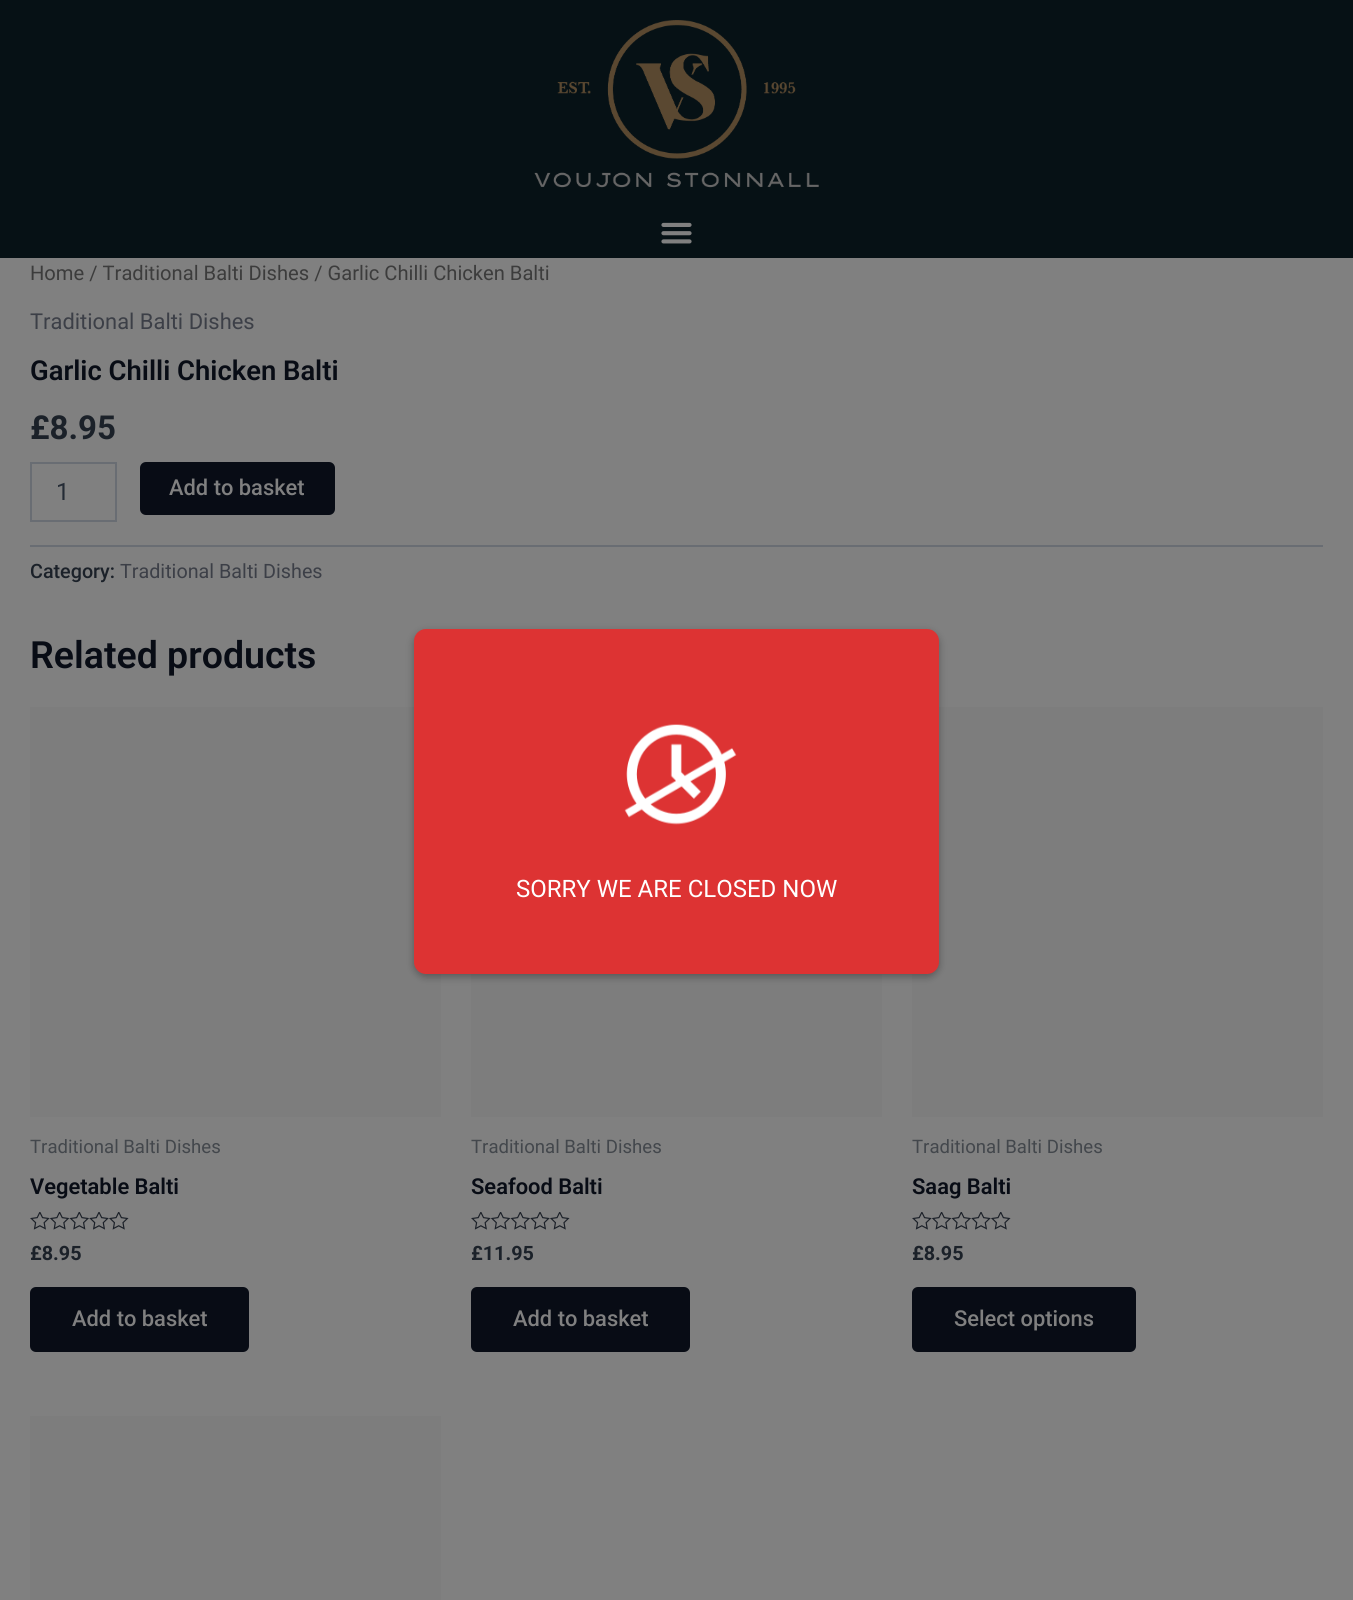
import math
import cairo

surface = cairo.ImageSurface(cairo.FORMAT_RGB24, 1353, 1600)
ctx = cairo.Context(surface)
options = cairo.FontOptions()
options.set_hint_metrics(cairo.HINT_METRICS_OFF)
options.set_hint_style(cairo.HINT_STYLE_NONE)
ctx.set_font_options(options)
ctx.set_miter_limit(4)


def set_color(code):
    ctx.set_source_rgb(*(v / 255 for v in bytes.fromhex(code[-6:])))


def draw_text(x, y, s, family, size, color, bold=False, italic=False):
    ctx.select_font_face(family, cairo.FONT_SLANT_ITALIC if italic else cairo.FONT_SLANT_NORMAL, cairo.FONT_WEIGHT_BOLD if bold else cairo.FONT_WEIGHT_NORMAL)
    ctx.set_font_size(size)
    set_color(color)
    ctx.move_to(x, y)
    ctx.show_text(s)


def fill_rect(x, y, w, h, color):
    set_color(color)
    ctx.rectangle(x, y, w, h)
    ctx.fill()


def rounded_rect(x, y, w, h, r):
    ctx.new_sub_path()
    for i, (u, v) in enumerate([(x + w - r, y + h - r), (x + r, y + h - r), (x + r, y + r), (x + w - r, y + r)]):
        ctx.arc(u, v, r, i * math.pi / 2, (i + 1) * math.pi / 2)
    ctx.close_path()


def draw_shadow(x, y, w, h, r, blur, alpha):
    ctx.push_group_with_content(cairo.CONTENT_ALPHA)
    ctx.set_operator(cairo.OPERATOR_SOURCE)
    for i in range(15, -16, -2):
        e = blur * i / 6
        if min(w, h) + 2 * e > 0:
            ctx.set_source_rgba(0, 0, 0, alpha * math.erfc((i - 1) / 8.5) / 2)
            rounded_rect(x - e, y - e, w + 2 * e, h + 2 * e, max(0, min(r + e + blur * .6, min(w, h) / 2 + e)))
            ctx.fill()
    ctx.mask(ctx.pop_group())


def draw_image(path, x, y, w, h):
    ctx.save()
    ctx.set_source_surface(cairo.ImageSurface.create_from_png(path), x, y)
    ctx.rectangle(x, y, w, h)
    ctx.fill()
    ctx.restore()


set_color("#808080")
ctx.paint()
fill_rect(0, 0, 1353, 258, "#061115")
draw_image("assets/img1.png", 534, 20, 285, 168)
draw_image("assets/img2.png", 661, 222, 31, 22)
draw_text(30, 280, "Home / Traditional Balti Dishes / Garlic Chilli Chicken Balti", "Roboto", 20.15, "#3c3c3c")
draw_text(30, 329, "Traditional Balti Dishes", "Roboto", 21.9, "#3c3f47")
draw_text(30, 380, "Garlic Chilli Chicken Balti", "Roboto SemiBold", 27.4, "#080c15")
draw_text(30, 439, "£8.95", "Roboto", 33, "#1b2129", bold=True)
ctx.rectangle(31, 463, 85, 58)
set_color("#696d73")
ctx.stroke()
draw_text(56, 500, "1", "Roboto", 24, "#242b35")
set_color("#080c15")
rounded_rect(140, 462, 195, 53, 6)
ctx.fill()
draw_text(169, 495, "Add to basket", "Roboto Medium", 21.9, "#808080")
fill_rect(30, 545, 1293, 2, "#696d73")
draw_text(30, 578, "Category:", "Roboto Medium", 19.75, "#1b2129")
draw_text(120, 578, "Traditional Balti Dishes", "Roboto", 19.75, "#3c3f47")
draw_text(30, 668, "Related products", "Roboto SemiBold", 37.5, "#080c15")
fill_rect(30, 707, 411, 410, "#7d7d7d")
draw_text(30, 1153, "Traditional Balti Dishes", "Roboto", 18.6, "#43474c")
draw_text(30, 1194, "Vegetable Balti", "Roboto SemiBold", 21.9, "#080c15")
draw_image("assets/img3.png", 30, 1212, 99, 18)
draw_text(30, 1260, "£8.95", "Roboto", 19.75, "#1b2129", bold=True)
set_color("#080c15")
rounded_rect(30, 1287, 219, 65, 6)
ctx.fill()
draw_text(72, 1326, "Add to basket", "Roboto Medium", 21.9, "#808080")
fill_rect(471, 974, 411, 143, "#7d7d7d")
draw_text(471, 1153, "Traditional Balti Dishes", "Roboto", 18.6, "#43474c")
draw_text(471, 1194, "Seafood Balti", "Roboto SemiBold", 21.9, "#080c15")
draw_image("assets/img3.png", 471, 1212, 99, 18)
draw_text(471, 1260, "£11.95", "Roboto", 19.75, "#1b2129", bold=True)
set_color("#080c15")
rounded_rect(471, 1287, 219, 65, 6)
ctx.fill()
draw_text(513, 1326, "Add to basket", "Roboto Medium", 21.9, "#808080")
fill_rect(912, 707, 411, 410, "#7d7d7d")
draw_text(912, 1153, "Traditional Balti Dishes", "Roboto", 18.6, "#43474c")
draw_text(912, 1194, "Saag Balti", "Roboto SemiBold", 21.9, "#080c15")
draw_image("assets/img3.png", 912, 1212, 99, 18)
draw_text(912, 1260, "£8.95", "Roboto", 19.75, "#1b2129", bold=True)
set_color("#080c15")
rounded_rect(912, 1287, 224, 65, 6)
ctx.fill()
draw_text(954, 1326, "Select options", "Roboto Medium", 21.9, "#808080")
fill_rect(30, 1416, 411, 184, "#7d7d7d")
set_color("#000000")
draw_shadow(414, 632, 525, 345, 12, 4, 0.3)
set_color("#dd3333")
rounded_rect(414, 629, 525, 345, 12)
ctx.fill()
draw_image("assets/img4.png", 624, 724, 113, 101)
draw_text(516, 897, "SORRY WE ARE CLOSED NOW", "Roboto", 24, "#ffffff")
surface.write_to_png("output.png")
